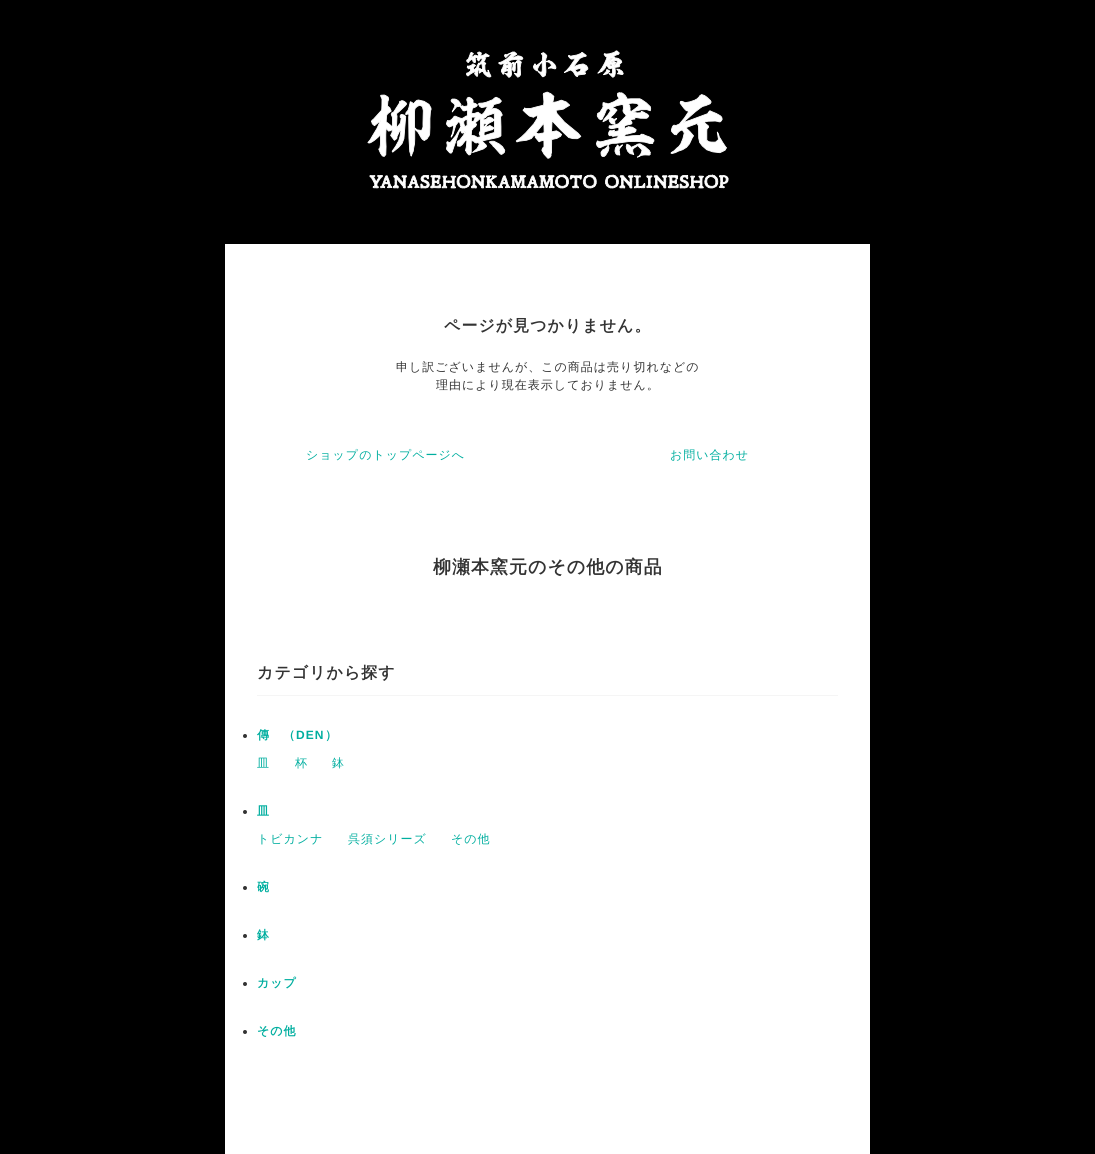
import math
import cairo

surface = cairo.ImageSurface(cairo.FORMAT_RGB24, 1095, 1154)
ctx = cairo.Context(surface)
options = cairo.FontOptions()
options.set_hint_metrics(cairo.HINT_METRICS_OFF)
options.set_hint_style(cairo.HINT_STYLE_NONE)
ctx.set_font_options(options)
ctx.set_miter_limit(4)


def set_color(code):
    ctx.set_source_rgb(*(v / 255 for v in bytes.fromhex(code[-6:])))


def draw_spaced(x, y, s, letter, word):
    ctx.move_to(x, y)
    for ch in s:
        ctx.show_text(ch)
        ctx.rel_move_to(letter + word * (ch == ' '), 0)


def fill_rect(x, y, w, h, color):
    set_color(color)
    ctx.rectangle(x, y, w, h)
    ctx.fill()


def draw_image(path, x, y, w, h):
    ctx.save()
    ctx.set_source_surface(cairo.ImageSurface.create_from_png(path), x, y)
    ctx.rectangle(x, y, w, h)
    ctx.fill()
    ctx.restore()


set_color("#000000")
ctx.paint()
draw_image("assets/img1.png", 367, 50, 362, 139)
fill_rect(225, 244, 645, 910, "#ffffff")
ctx.select_font_face("WenQuanYi Zen Hei", cairo.FONT_SLANT_NORMAL, cairo.FONT_WEIGHT_BOLD)
ctx.set_font_size(16)
set_color("#333333")
draw_spaced(444, 331, "ページが見つかりません。", 1, 0)
ctx.select_font_face("WenQuanYi Zen Hei Medium")
ctx.set_font_size(12)
draw_spaced(396, 371, "申し訳ございませんが、この商品は売り切れなどの", 1, 0)
draw_spaced(436, 389, "理由により現在表示しておりません。", 1, 0)
set_color("#00ae9f")
draw_spaced(306, 459, "ショップのトップページへ", 1, 0)
draw_spaced(670, 459, "お問い合わせ", 1, 0)
ctx.select_font_face("WenQuanYi Zen Hei", cairo.FONT_SLANT_NORMAL, cairo.FONT_WEIGHT_BOLD)
ctx.set_font_size(18)
set_color("#333333")
draw_spaced(433, 573, "柳瀬本窯元のその他の商品", 1, 0)
fill_rect(257, 695, 581, 1, "#f5f5f5")
ctx.set_font_size(16)
set_color("#333333")
draw_spaced(257, 678, "カテゴリから探す", 1, 0)
ctx.new_path()
ctx.arc(245, 736, 2, 0, 2 * math.pi)
ctx.fill()
ctx.set_font_size(12)
set_color("#00ae9f")
draw_spaced(257, 739, "傳　（", 1, 0)
ctx.select_font_face("Liberation Sans", cairo.FONT_SLANT_NORMAL, cairo.FONT_WEIGHT_BOLD)
draw_spaced(296, 739, "DEN", 1, 0)
ctx.select_font_face("WenQuanYi Zen Hei", cairo.FONT_SLANT_NORMAL, cairo.FONT_WEIGHT_BOLD)
draw_spaced(325, 739, "）", 1, 0)
ctx.select_font_face("WenQuanYi Zen Hei Medium")
draw_spaced(257, 767, "皿", 1, 0)
draw_spaced(295, 767, "杯", 1, 0)
draw_spaced(332, 767, "鉢", 1, 0)
set_color("#333333")
ctx.new_path()
ctx.arc(245, 812, 2, 0, 2 * math.pi)
ctx.fill()
ctx.select_font_face("WenQuanYi Zen Hei", cairo.FONT_SLANT_NORMAL, cairo.FONT_WEIGHT_BOLD)
set_color("#00ae9f")
draw_spaced(257, 815, "皿", 1, 0)
ctx.select_font_face("WenQuanYi Zen Hei Medium")
draw_spaced(257, 843, "トビカンナ", 1, 0)
draw_spaced(348, 843, "呉須シリーズ", 1, 0)
draw_spaced(451, 843, "その他", 1, 0)
set_color("#333333")
ctx.new_path()
ctx.arc(245, 888, 2, 0, 2 * math.pi)
ctx.fill()
ctx.select_font_face("WenQuanYi Zen Hei", cairo.FONT_SLANT_NORMAL, cairo.FONT_WEIGHT_BOLD)
set_color("#00ae9f")
draw_spaced(257, 891, "碗", 1, 0)
set_color("#333333")
ctx.new_path()
ctx.arc(245, 936, 2, 0, 2 * math.pi)
ctx.fill()
set_color("#00ae9f")
draw_spaced(257, 939, "鉢", 1, 0)
set_color("#333333")
ctx.new_path()
ctx.arc(245, 984, 2, 0, 2 * math.pi)
ctx.fill()
set_color("#00ae9f")
draw_spaced(257, 987, "カップ", 1, 0)
set_color("#333333")
ctx.new_path()
ctx.arc(245, 1032, 2, 0, 2 * math.pi)
ctx.fill()
set_color("#00ae9f")
draw_spaced(257, 1035, "その他", 1, 0)
surface.write_to_png("output.png")
